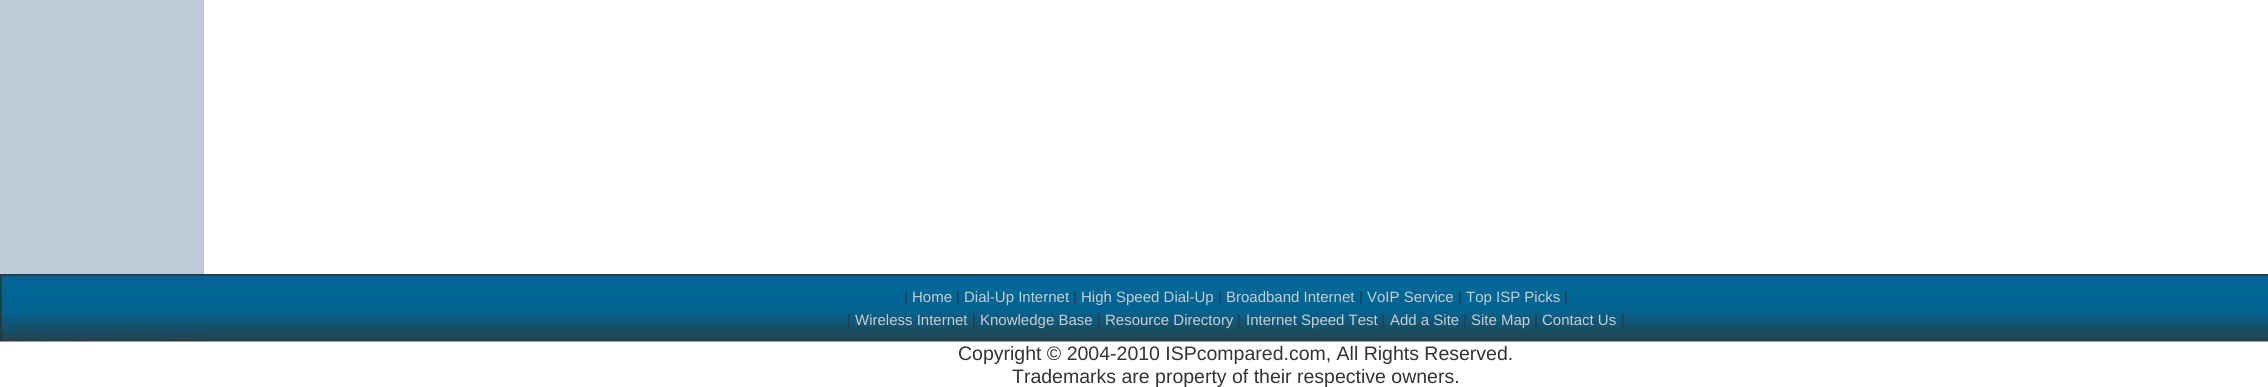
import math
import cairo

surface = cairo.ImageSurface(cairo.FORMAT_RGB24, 2268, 387)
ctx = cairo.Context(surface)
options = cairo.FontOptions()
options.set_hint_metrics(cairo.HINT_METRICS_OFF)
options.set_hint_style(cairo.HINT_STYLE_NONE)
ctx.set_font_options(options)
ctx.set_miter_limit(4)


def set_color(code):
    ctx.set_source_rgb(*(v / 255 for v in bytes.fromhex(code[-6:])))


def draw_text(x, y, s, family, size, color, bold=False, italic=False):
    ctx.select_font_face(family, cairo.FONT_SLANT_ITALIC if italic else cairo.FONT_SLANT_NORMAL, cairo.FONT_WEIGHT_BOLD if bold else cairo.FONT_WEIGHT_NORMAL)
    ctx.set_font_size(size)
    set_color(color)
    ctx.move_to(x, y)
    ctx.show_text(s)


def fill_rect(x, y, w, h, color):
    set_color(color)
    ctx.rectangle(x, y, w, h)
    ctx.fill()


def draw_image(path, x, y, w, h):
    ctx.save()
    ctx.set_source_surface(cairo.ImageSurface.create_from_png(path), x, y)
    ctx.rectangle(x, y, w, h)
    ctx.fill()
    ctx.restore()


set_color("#ffffff")
ctx.paint()
fill_rect(0, 0, 204, 274, "#becad8")
draw_image("assets/img1.png", 0, 274, 204, 68)
draw_image("assets/img2.png", 204, 274, 2064, 68)
draw_text(904, 302, "|", "Liberation Sans", 15, "#333333")
draw_text(912, 302, "Home", "Liberation Sans", 15, "#cccccc")
draw_text(956, 302, "|", "Liberation Sans", 15, "#333333")
draw_text(964, 302, "Dial-Up Internet", "Liberation Sans", 15, "#cccccc")
draw_text(1073, 302, "|", "Liberation Sans", 15, "#333333")
draw_text(1081, 302, "High Speed Dial-Up", "Liberation Sans", 15, "#cccccc")
draw_text(1218, 302, "|", "Liberation Sans", 15, "#333333")
draw_text(1226, 302, "Broadband Internet", "Liberation Sans", 15, "#cccccc")
draw_text(1359, 302, "|", "Liberation Sans", 15, "#333333")
draw_text(1367, 302, "VoIP Service", "Liberation Sans", 15, "#cccccc")
draw_text(1458, 302, "|", "Liberation Sans", 15, "#333333")
draw_text(1466, 302, "Top ISP Picks", "Liberation Sans", 15, "#cccccc")
draw_text(1564, 302, "|", "Liberation Sans", 15, "#333333")
draw_text(847, 325, "|", "Liberation Sans", 15, "#333333")
draw_text(855, 325, "Wireless Internet", "Liberation Sans", 15, "#cccccc")
draw_text(972, 325, "|", "Liberation Sans", 15, "#333333")
draw_text(980, 325, "Knowledge Base", "Liberation Sans", 15, "#cccccc")
draw_text(1097, 325, "|", "Liberation Sans", 15, "#333333")
draw_text(1105, 325, "Resource Directory", "Liberation Sans", 15, "#cccccc")
draw_text(1237, 325, "|", "Liberation Sans", 15, "#333333")
draw_text(1246, 325, "Internet Speed Test", "Liberation Sans", 15, "#cccccc")
draw_text(1381, 325, "|", "Liberation Sans", 15, "#333333")
draw_text(1390, 325, "Add a Site", "Liberation Sans", 15, "#cccccc")
draw_text(1463, 325, "|", "Liberation Sans", 15, "#333333")
draw_text(1471, 325, "Site Map", "Liberation Sans", 15, "#cccccc")
draw_text(1534, 325, "|", "Liberation Sans", 15, "#333333")
draw_text(1542, 325, "Contact Us", "Liberation Sans", 15, "#cccccc")
draw_text(1621, 325, "|", "Liberation Sans", 15, "#333333")
draw_text(958, 360, "Copyright © 2004-2010 ISPcompared.com, All Rights Reserved.", "Liberation Sans", 19.5, "#333333")
draw_text(1012, 383, "Trademarks are property of their respective owners.", "Liberation Sans", 19.5, "#333333")
surface.write_to_png("output.png")
